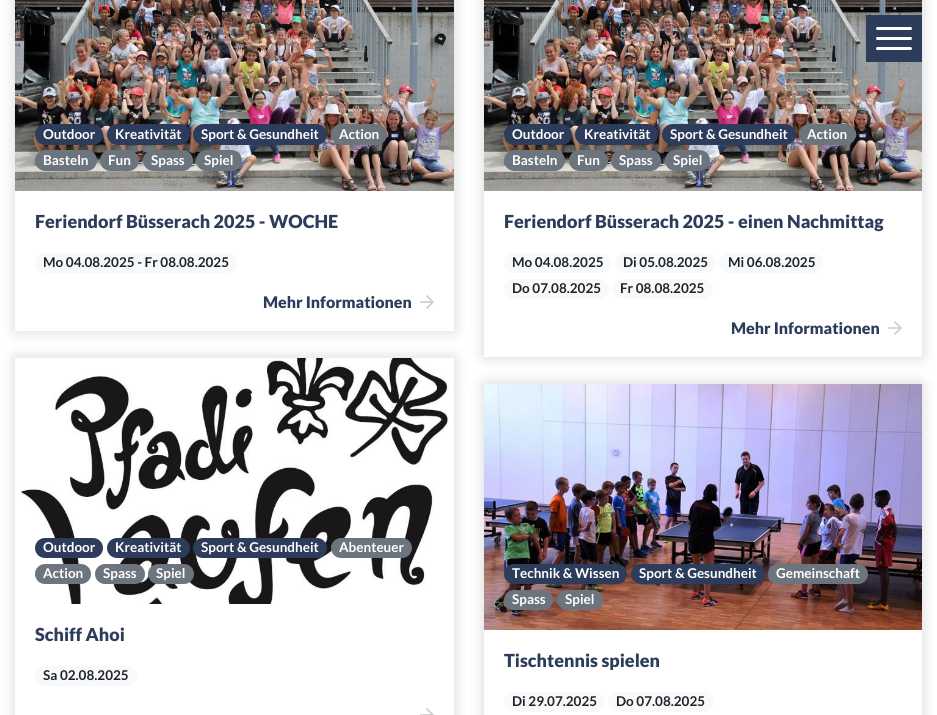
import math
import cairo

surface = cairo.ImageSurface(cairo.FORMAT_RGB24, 937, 715)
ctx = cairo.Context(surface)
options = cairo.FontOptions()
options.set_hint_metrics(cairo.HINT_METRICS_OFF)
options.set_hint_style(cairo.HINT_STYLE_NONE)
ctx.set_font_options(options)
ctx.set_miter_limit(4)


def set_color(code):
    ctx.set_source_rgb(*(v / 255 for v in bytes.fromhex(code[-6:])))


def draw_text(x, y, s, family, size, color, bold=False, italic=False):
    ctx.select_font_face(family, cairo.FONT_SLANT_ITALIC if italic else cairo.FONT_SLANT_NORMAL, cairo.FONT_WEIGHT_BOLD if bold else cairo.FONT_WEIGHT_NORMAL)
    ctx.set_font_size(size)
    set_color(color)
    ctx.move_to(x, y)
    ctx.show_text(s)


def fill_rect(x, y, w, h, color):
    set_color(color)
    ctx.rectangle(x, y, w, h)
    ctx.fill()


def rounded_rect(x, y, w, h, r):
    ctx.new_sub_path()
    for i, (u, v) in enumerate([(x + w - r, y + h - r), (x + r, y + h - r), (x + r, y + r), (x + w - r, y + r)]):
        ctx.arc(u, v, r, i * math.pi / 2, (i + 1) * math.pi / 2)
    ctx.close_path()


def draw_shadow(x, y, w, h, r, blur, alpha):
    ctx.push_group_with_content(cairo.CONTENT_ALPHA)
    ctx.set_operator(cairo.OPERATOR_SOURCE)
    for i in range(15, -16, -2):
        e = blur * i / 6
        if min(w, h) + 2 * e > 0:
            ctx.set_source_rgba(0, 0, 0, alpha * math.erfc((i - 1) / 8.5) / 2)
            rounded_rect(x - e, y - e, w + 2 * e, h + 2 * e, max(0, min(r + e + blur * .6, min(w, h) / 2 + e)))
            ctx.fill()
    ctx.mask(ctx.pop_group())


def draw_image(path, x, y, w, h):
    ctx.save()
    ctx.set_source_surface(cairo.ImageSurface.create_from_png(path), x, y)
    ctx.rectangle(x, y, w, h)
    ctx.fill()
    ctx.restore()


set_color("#ffffff")
ctx.paint()
ctx.save()
ctx.set_fill_rule(cairo.FILL_RULE_EVEN_ODD)
ctx.new_path()
ctx.move_to(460, 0)
ctx.line_to(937, 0)
ctx.line_to(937, 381)
ctx.line_to(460, 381)
ctx.close_path()
ctx.move_to(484, -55)
ctx.line_to(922, -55)
ctx.line_to(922, 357)
ctx.line_to(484, 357)
ctx.close_path()
ctx.clip()
set_color("#000000")
draw_shadow(484, -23, 438, 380, 0, 7.5, 0.16)
ctx.restore()
draw_image("assets/img3.png", 484, 0, 438, 191)
fill_rect(866, 15, 56, 47, "#2d3c5a")
set_color("#ffffff")
rounded_rect(876, 37, 36, 3, 1.5)
ctx.fill()
rounded_rect(876, 27, 36, 3, 1.5)
ctx.fill()
rounded_rect(876, 47, 36, 3, 1.5)
ctx.fill()
ctx.save()
ctx.set_fill_rule(cairo.FILL_RULE_EVEN_ODD)
ctx.new_path()
ctx.move_to(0, 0)
ctx.line_to(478, 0)
ctx.line_to(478, 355)
ctx.line_to(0, 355)
ctx.close_path()
ctx.move_to(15, -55)
ctx.line_to(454, -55)
ctx.line_to(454, 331)
ctx.line_to(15, 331)
ctx.close_path()
ctx.clip()
set_color("#000000")
draw_shadow(15, -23, 439, 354, 0, 7.5, 0.16)
ctx.restore()
draw_image("assets/img1.png", 15, 0, 439, 191)
set_color("#2d3c5a")
rounded_rect(35, 124, 68, 21, 10.5)
ctx.fill()
draw_text(43, 139, "Outdoor", "Lato", 13.5, "#ffffff", bold=True)
set_color("#2d3c5a")
rounded_rect(107, 124, 83, 21, 10.5)
ctx.fill()
draw_text(115, 139, "Kreativität", "Lato", 13.5, "#ffffff", bold=True)
set_color("#2d3c5a")
rounded_rect(193, 124, 134, 21, 10.5)
ctx.fill()
draw_text(201, 139, "Sport & Gesundheit", "Lato", 13.5, "#ffffff", bold=True)
set_color("#6c757d")
rounded_rect(331, 124, 56, 21, 10.5)
ctx.fill()
draw_text(339, 139, "Action", "Lato", 13.5, "#ffffff", bold=True)
set_color("#6c757d")
rounded_rect(35, 150, 62, 21, 10.5)
ctx.fill()
draw_text(43, 165, "Basteln", "Lato", 13.5, "#ffffff", bold=True)
set_color("#6c757d")
rounded_rect(100, 150, 39, 21, 10.5)
ctx.fill()
draw_text(108, 165, "Fun", "Lato", 13.5, "#ffffff", bold=True)
set_color("#6c757d")
rounded_rect(143, 150, 50, 21, 10.5)
ctx.fill()
draw_text(151, 165, "Spass", "Lato", 13.5, "#ffffff", bold=True)
set_color("#6c757d")
rounded_rect(196, 150, 46, 21, 10.5)
ctx.fill()
draw_text(204, 165, "Spiel", "Lato", 13.5, "#ffffff", bold=True)
draw_text(35, 228, "Feriendorf Büsserach 2025 - WOCHE", "Lato Black", 18, "#2d3c5a")
set_color("#f8f9fa")
rounded_rect(35, 253, 202, 20, 10)
ctx.fill()
draw_text(43, 267, "Mo 04.08.2025 - Fr 08.08.2025", "Lato", 13.5, "#212529", bold=True)
draw_text(263, 308, "Mehr Informationen", "Lato Black", 16, "#2d3c5a")
draw_image("assets/img2.png", 420, 295, 14, 14)
rounded_rect(504, 124, 68, 21, 10.5)
ctx.fill()
draw_text(512, 139, "Outdoor", "Lato", 13.5, "#ffffff", bold=True)
set_color("#2d3c5a")
rounded_rect(575, 124, 83, 21, 10.5)
ctx.fill()
draw_text(584, 139, "Kreativität", "Lato", 13.5, "#ffffff", bold=True)
set_color("#2d3c5a")
rounded_rect(662, 124, 134, 21, 10.5)
ctx.fill()
draw_text(670, 139, "Sport & Gesundheit", "Lato", 13.5, "#ffffff", bold=True)
set_color("#6c757d")
rounded_rect(799, 124, 57, 21, 10.5)
ctx.fill()
draw_text(807, 139, "Action", "Lato", 13.5, "#ffffff", bold=True)
set_color("#6c757d")
rounded_rect(504, 150, 61, 21, 10.5)
ctx.fill()
draw_text(512, 165, "Basteln", "Lato", 13.5, "#ffffff", bold=True)
set_color("#6c757d")
rounded_rect(569, 150, 39, 21, 10.5)
ctx.fill()
draw_text(577, 165, "Fun", "Lato", 13.5, "#ffffff", bold=True)
set_color("#6c757d")
rounded_rect(611, 150, 50, 21, 10.5)
ctx.fill()
draw_text(619, 165, "Spass", "Lato", 13.5, "#ffffff", bold=True)
set_color("#6c757d")
rounded_rect(665, 150, 45, 21, 10.5)
ctx.fill()
draw_text(673, 165, "Spiel", "Lato", 13.5, "#ffffff", bold=True)
draw_text(504, 228, "Feriendorf Büsserach 2025 - einen Nachmittag", "Lato Black", 18, "#2d3c5a")
set_color("#f8f9fa")
rounded_rect(504, 253, 107, 20, 10)
ctx.fill()
draw_text(512, 267, "Mo 04.08.2025", "Lato", 13.5, "#212529", bold=True)
set_color("#f8f9fa")
rounded_rect(615, 253, 101, 20, 10)
ctx.fill()
draw_text(623, 267, "Di 05.08.2025", "Lato", 13.5, "#212529", bold=True)
set_color("#f8f9fa")
rounded_rect(719, 253, 104, 20, 10)
ctx.fill()
draw_text(728, 267, "Mi 06.08.2025", "Lato", 13.5, "#212529", bold=True)
set_color("#f8f9fa")
rounded_rect(504, 279, 105, 20, 10)
ctx.fill()
draw_text(512, 293, "Do 07.08.2025", "Lato", 13.5, "#212529", bold=True)
set_color("#f8f9fa")
rounded_rect(612, 279, 101, 20, 10)
ctx.fill()
draw_text(620, 293, "Fr 08.08.2025", "Lato", 13.5, "#212529", bold=True)
draw_text(731, 334, "Mehr Informationen", "Lato Black", 16, "#2d3c5a")
draw_image("assets/img2.png", 888, 321, 14, 14)
ctx.save()
ctx.set_fill_rule(cairo.FILL_RULE_EVEN_ODD)
ctx.new_path()
ctx.move_to(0, 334)
ctx.line_to(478, 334)
ctx.line_to(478, 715)
ctx.line_to(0, 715)
ctx.close_path()
ctx.move_to(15, 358)
ctx.line_to(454, 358)
ctx.line_to(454, 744)
ctx.line_to(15, 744)
ctx.close_path()
ctx.clip()
set_color("#000000")
draw_shadow(15, 358, 439, 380, 0, 7.5, 0.16)
ctx.restore()
draw_image("assets/img4.png", 20, 358, 429, 246)
rounded_rect(35, 538, 68, 20, 10)
ctx.fill()
draw_text(43, 552, "Outdoor", "Lato", 13.5, "#ffffff", bold=True)
set_color("#2d3c5a")
rounded_rect(107, 538, 83, 20, 10)
ctx.fill()
draw_text(115, 552, "Kreativität", "Lato", 13.5, "#ffffff", bold=True)
set_color("#2d3c5a")
rounded_rect(193, 538, 134, 20, 10)
ctx.fill()
draw_text(201, 552, "Sport & Gesundheit", "Lato", 13.5, "#ffffff", bold=True)
set_color("#6c757d")
rounded_rect(331, 538, 81, 20, 10)
ctx.fill()
draw_text(339, 552, "Abenteuer", "Lato", 13.5, "#ffffff", bold=True)
set_color("#6c757d")
rounded_rect(35, 564, 56, 20, 10)
ctx.fill()
draw_text(43, 578, "Action", "Lato", 13.5, "#ffffff", bold=True)
set_color("#6c757d")
rounded_rect(95, 564, 50, 20, 10)
ctx.fill()
draw_text(103, 578, "Spass", "Lato", 13.5, "#ffffff", bold=True)
set_color("#6c757d")
rounded_rect(148, 564, 46, 20, 10)
ctx.fill()
draw_text(156, 578, "Spiel", "Lato", 13.5, "#ffffff", bold=True)
draw_text(35, 641, "Schiff Ahoi", "Lato Black", 18, "#2d3c5a")
set_color("#f8f9fa")
rounded_rect(35, 666, 102, 20, 10)
ctx.fill()
draw_text(43, 680, "Sa 02.08.2025", "Lato", 13.5, "#212529", bold=True)
draw_image("assets/img5.png", 420, 708, 14, 7)
ctx.save()
ctx.set_fill_rule(cairo.FILL_RULE_EVEN_ODD)
ctx.new_path()
ctx.move_to(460, 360)
ctx.line_to(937, 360)
ctx.line_to(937, 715)
ctx.line_to(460, 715)
ctx.close_path()
ctx.move_to(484, 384)
ctx.line_to(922, 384)
ctx.line_to(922, 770)
ctx.line_to(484, 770)
ctx.close_path()
ctx.clip()
set_color("#000000")
draw_shadow(484, 384, 438, 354, 0, 7.5, 0.16)
ctx.restore()
draw_image("assets/img6.png", 484, 384, 438, 246)
set_color("#2d3c5a")
rounded_rect(504, 564, 123, 20, 10)
ctx.fill()
draw_text(512, 578, "Technik & Wissen", "Lato", 13.5, "#ffffff", bold=True)
set_color("#2d3c5a")
rounded_rect(631, 564, 134, 20, 10)
ctx.fill()
draw_text(639, 578, "Sport & Gesundheit", "Lato", 13.5, "#ffffff", bold=True)
set_color("#6c757d")
rounded_rect(768, 564, 100, 20, 10)
ctx.fill()
draw_text(776, 578, "Gemeinschaft", "Lato", 13.5, "#ffffff", bold=True)
set_color("#6c757d")
rounded_rect(504, 590, 49, 20, 10)
ctx.fill()
draw_text(512, 604, "Spass", "Lato", 13.5, "#ffffff", bold=True)
set_color("#6c757d")
rounded_rect(557, 590, 46, 20, 10)
ctx.fill()
draw_text(565, 604, "Spiel", "Lato", 13.5, "#ffffff", bold=True)
draw_text(504, 667, "Tischtennis spielen", "Lato Black", 18, "#2d3c5a")
set_color("#f8f9fa")
rounded_rect(504, 692, 101, 20, 10)
ctx.fill()
draw_text(512, 706, "Di 29.07.2025", "Lato", 13.5, "#212529", bold=True)
set_color("#f8f9fa")
rounded_rect(608, 692, 106, 20, 10)
ctx.fill()
draw_text(616, 706, "Do 07.08.2025", "Lato", 13.5, "#212529", bold=True)
surface.write_to_png("output.png")
